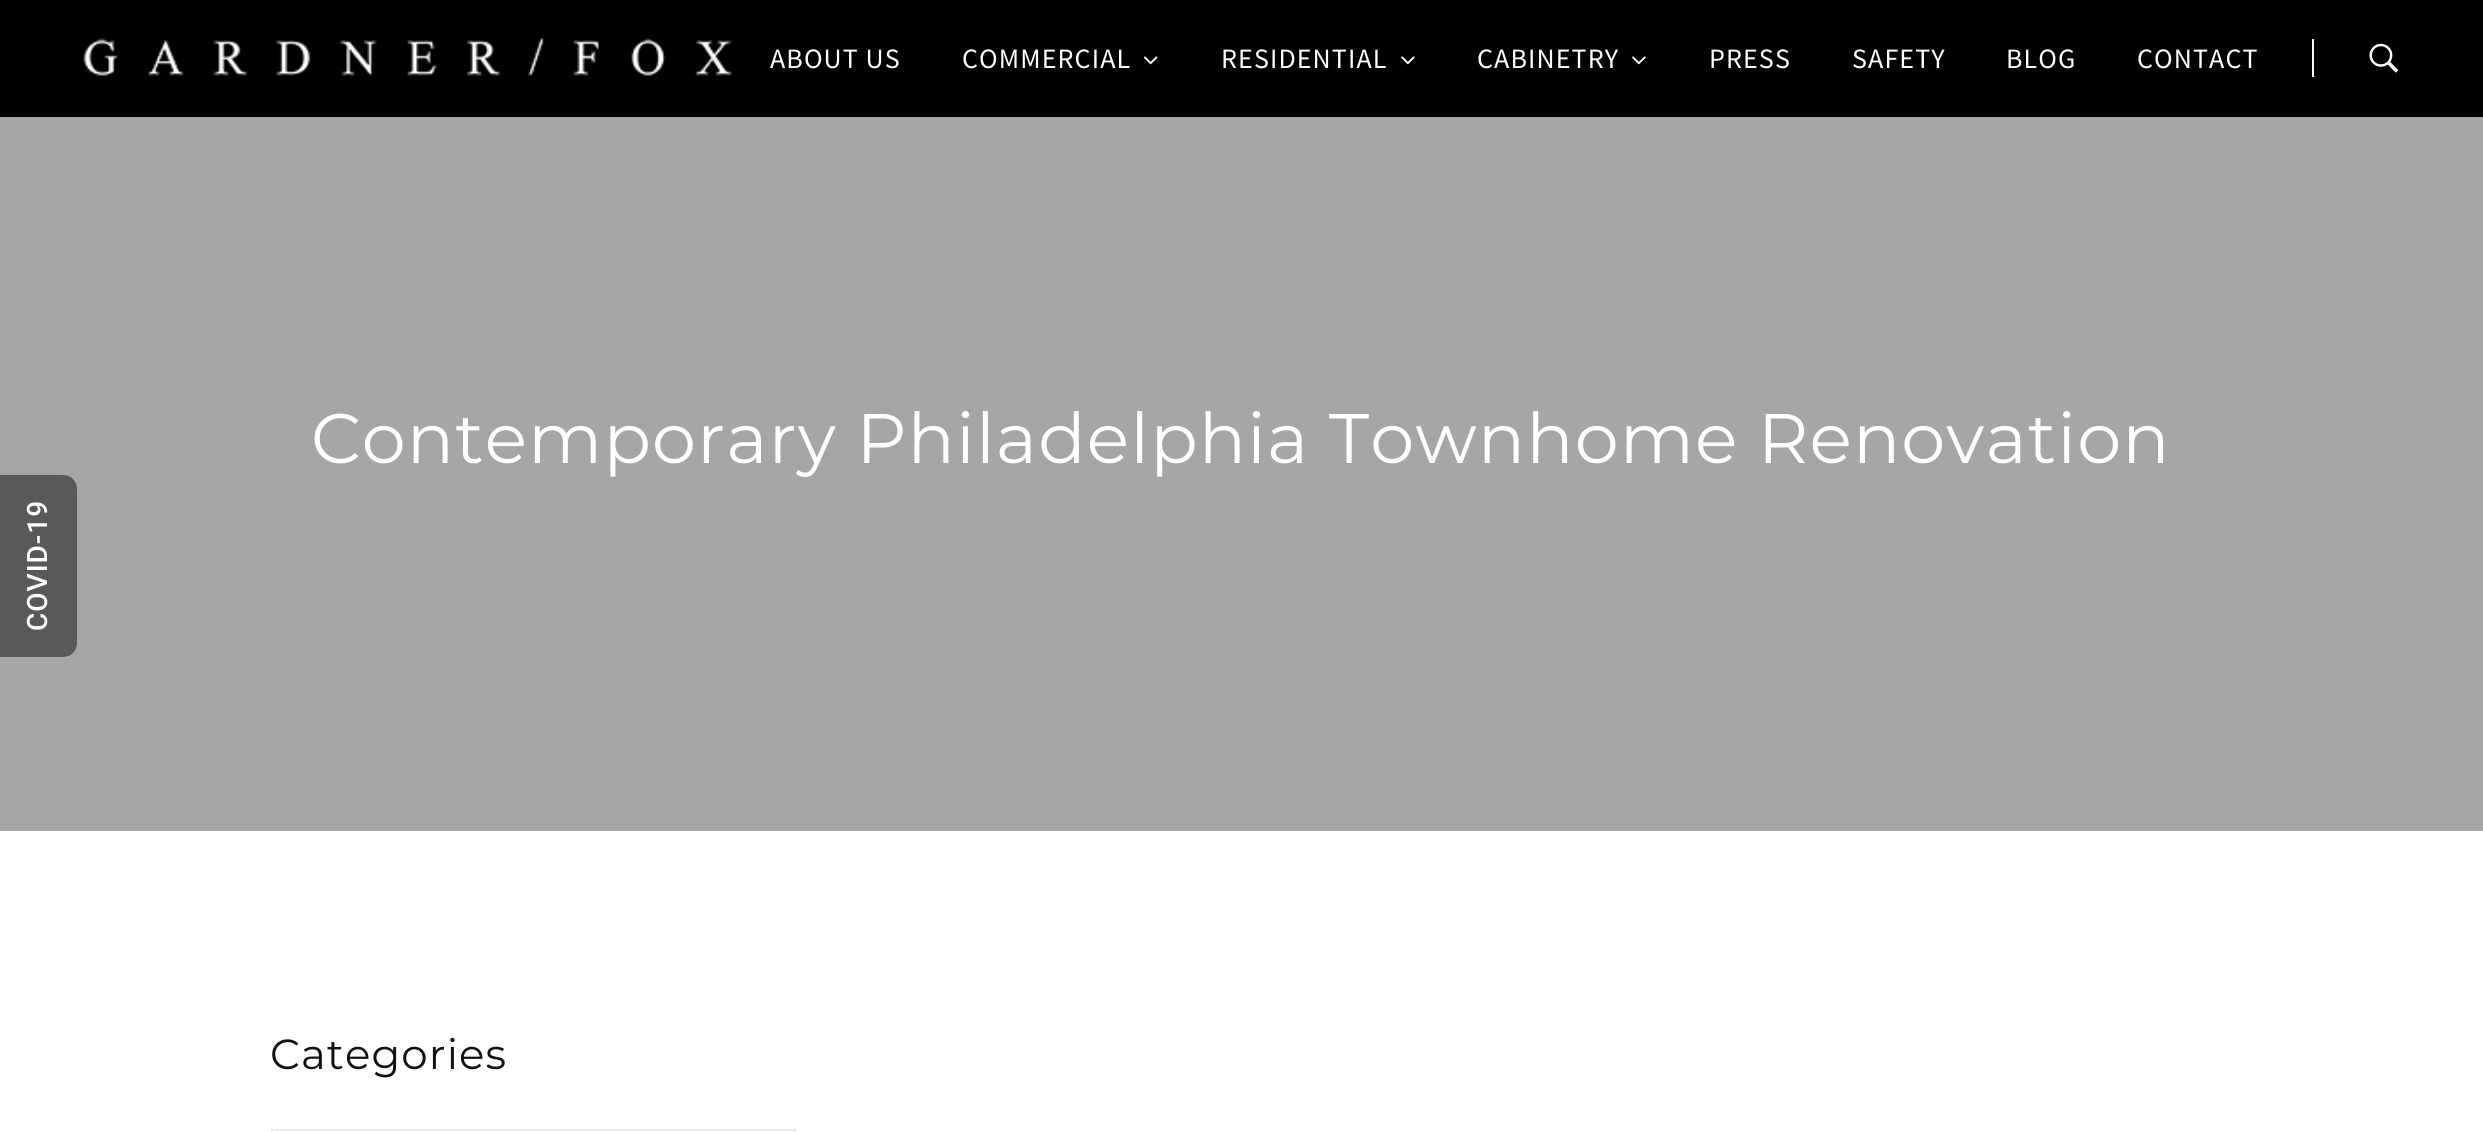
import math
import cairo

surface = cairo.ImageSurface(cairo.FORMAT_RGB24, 2483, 1132)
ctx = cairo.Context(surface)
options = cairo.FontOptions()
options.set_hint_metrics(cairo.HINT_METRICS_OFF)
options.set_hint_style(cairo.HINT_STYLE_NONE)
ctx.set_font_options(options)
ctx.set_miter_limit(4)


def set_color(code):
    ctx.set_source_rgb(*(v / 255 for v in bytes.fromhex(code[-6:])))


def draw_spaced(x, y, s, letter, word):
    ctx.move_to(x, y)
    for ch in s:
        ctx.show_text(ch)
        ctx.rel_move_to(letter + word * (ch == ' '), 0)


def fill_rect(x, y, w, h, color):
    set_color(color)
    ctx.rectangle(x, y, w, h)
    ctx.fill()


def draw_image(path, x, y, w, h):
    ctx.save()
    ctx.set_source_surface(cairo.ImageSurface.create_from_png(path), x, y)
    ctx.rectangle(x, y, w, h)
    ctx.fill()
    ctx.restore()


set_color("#ffffff")
ctx.paint()
fill_rect(0, 0, 2483, 117, "#000000")
draw_image("assets/img1.png", 83, 38, 649, 38)
ctx.select_font_face("Source Sans Pro")
ctx.set_font_size(28)
set_color("#ffffff")
draw_spaced(770, 68, "ABOUT US", 1.1, 0)
draw_spaced(962, 68, "COMMERCIAL", 1.1, 0)
draw_image("assets/img2.png", 1143, 56, 15, 9)
draw_spaced(1221, 68, "RESIDENTIAL", 1.1, 0)
draw_image("assets/img3.png", 1401, 56, 14, 9)
draw_spaced(1477, 68, "CABINETRY", 1.1, 0)
draw_image("assets/img3.png", 1632, 56, 14, 9)
draw_spaced(1709, 68, "PRESS", 1.1, 0)
draw_spaced(1852, 68, "SAFETY", 1.1, 0)
draw_spaced(2006, 68, "BLOG", 1.1, 0)
draw_spaced(2137, 68, "CONTACT", 1.1, 0)
fill_rect(2312, 39, 2, 38, "#ffffff")
draw_image("assets/img4.png", 2369, 43, 30, 30)
fill_rect(0, 117, 2483, 714, "#a6a6a6")
set_color("#595959")
ctx.new_path()
ctx.move_to(0, 657)
ctx.line_to(0, 475)
ctx.line_to(63, 475)
ctx.curve_to(71, 475, 77, 481, 77, 489)
ctx.line_to(77, 643)
ctx.curve_to(77, 651, 71, 657, 63, 657)
ctx.close_path()
ctx.fill()
ctx.select_font_face("Roboto Medium")
set_color("#ffffff")
ctx.save()
ctx.translate(47, 631)
ctx.rotate(-90 * math.pi / 180)
draw_spaced(0, 0, "COVID-19", 1, 0)
ctx.restore()
ctx.select_font_face("Montserrat")
ctx.set_font_size(70)
draw_spaced(311, 463, "Contemporary Philadelphia Townhome Renovation", 1.1, 0)
ctx.set_font_size(42)
set_color("#111111")
draw_spaced(270, 1069, "Categories", 1.1, 0)
ctx.rectangle(272, 1130, 523, 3)
set_color("#eeeeee")
ctx.stroke()
surface.write_to_png("output.png")
